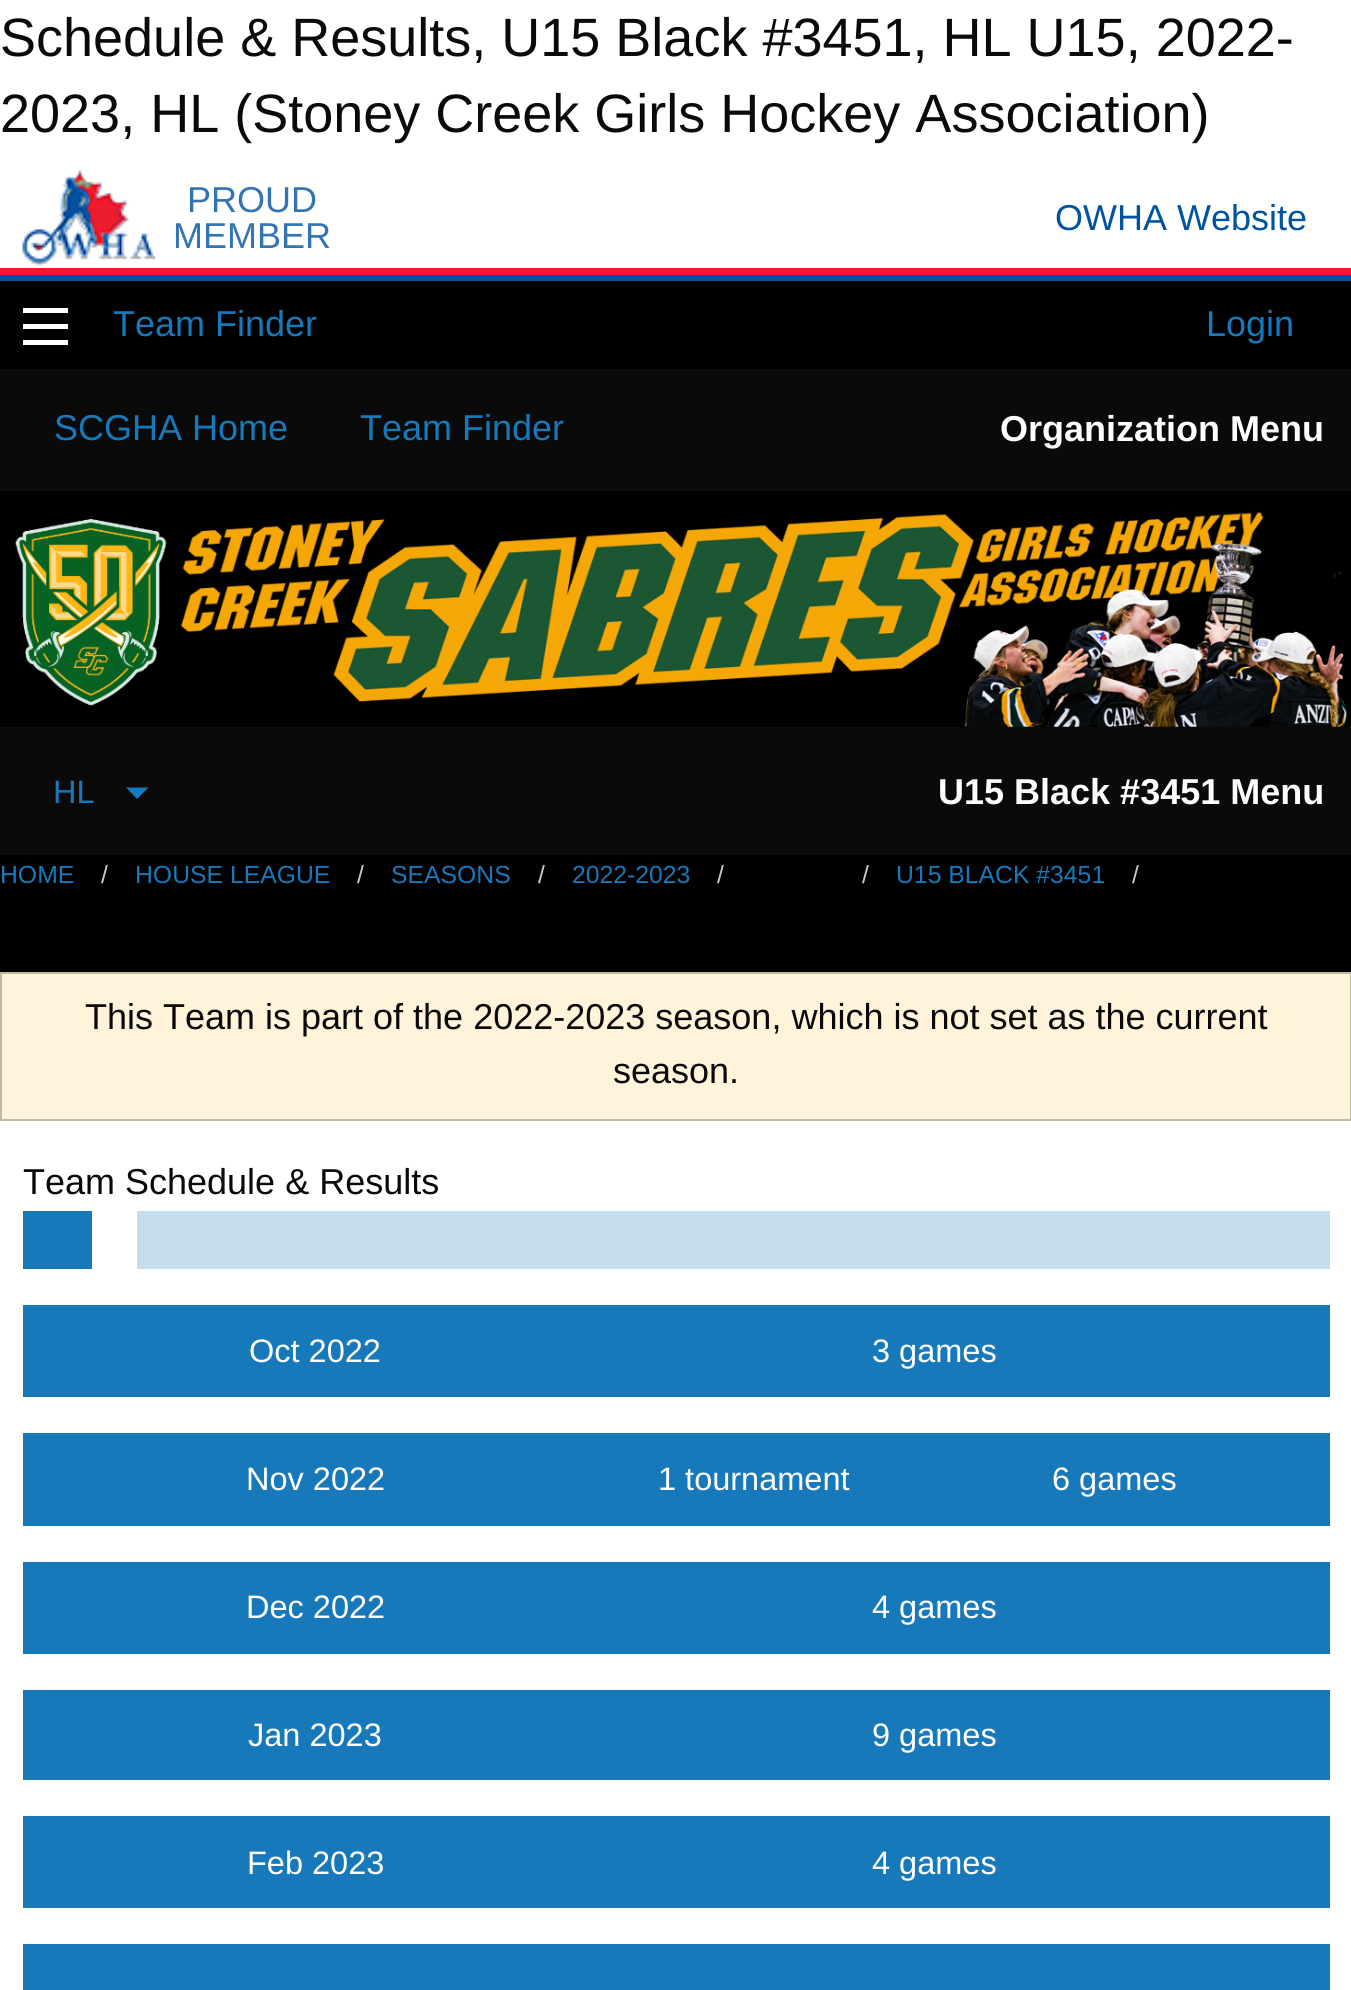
import math
import cairo

surface = cairo.ImageSurface(cairo.FORMAT_RGB24, 1351, 1990)
ctx = cairo.Context(surface)
options = cairo.FontOptions()
options.set_hint_metrics(cairo.HINT_METRICS_OFF)
options.set_hint_style(cairo.HINT_STYLE_NONE)
ctx.set_font_options(options)
ctx.set_miter_limit(4)


def set_color(code):
    ctx.set_source_rgb(*(v / 255 for v in bytes.fromhex(code[-6:])))


def draw_text(x, y, s, family, size, color, bold=False, italic=False):
    ctx.select_font_face(family, cairo.FONT_SLANT_ITALIC if italic else cairo.FONT_SLANT_NORMAL, cairo.FONT_WEIGHT_BOLD if bold else cairo.FONT_WEIGHT_NORMAL)
    ctx.set_font_size(size)
    set_color(color)
    ctx.move_to(x, y)
    ctx.show_text(s)


def fill_rect(x, y, w, h, color):
    set_color(color)
    ctx.rectangle(x, y, w, h)
    ctx.fill()


def draw_image(path, x, y, w, h):
    ctx.save()
    ctx.set_source_surface(cairo.ImageSurface.create_from_png(path), x, y)
    ctx.rectangle(x, y, w, h)
    ctx.fill()
    ctx.restore()


set_color("#ffffff")
ctx.paint()
draw_text(0, 56, "Schedule & Results, U15 Black #3451, HL U15, 2022-", "Liberation Sans", 54, "#0a0a0a")
draw_text(0, 132, "2023, HL (Stoney Creek Girls Hockey Association)", "Liberation Sans", 54, "#0a0a0a")
draw_image("assets/img1.png", 22, 168, 134, 98)
draw_text(187, 212, "PROUD", "Liberation Sans", 36, "#3375b2")
draw_text(173, 248, "MEMBER", "Liberation Sans", 36, "#3375b2")
draw_text(1055, 230, "OWHA Website", "Liberation Sans", 36, "#00539f")
fill_rect(0, 268, 1351, 7, "#ed1b2d")
fill_rect(0, 275, 1351, 6, "#00539f")
fill_rect(0, 281, 1351, 691, "#000000")
fill_rect(23, 340, 45, 5, "#fefefe")
fill_rect(23, 324, 45, 5, "#fefefe")
fill_rect(23, 308, 45, 5, "#fefefe")
draw_text(113, 336, "Team Finder", "Liberation Sans", 36, "#1779ba")
draw_text(1206, 336, "Login", "Liberation Sans", 36, "#1779ba")
fill_rect(0, 369, 1351, 122, "#0a0a0a")
draw_text(54, 440, "SCGHA Home", "Liberation Sans", 36, "#1779ba")
draw_text(360, 440, "Team Finder", "Liberation Sans", 36, "#1779ba")
draw_text(1000, 441, "Organization Menu", "Liberation Sans", 36, "#fefefe", bold=True)
draw_image("assets/img2.png", 15, 511, 1332, 216)
fill_rect(0, 727, 1351, 128, "#0a0a0a")
draw_text(53, 803, "HL", "Liberation Sans", 32.5, "#1779ba")
ctx.new_path()
ctx.move_to(126, 787.5)
ctx.line_to(148.5, 787.5)
ctx.line_to(137, 799)
ctx.close_path()
ctx.fill()
draw_text(938, 804, "U15 Black #3451 Menu", "Liberation Sans", 36, "#fefefe", bold=True)
draw_text(0, 883, "HOME", "Liberation Sans", 24.75, "#1779ba")
draw_text(101, 883, "/", "Liberation Sans", 24.75, "#cacaca")
draw_text(135, 883, "HOUSE LEAGUE", "Liberation Sans", 24.75, "#1779ba")
draw_text(357, 883, "/", "Liberation Sans", 24.75, "#cacaca")
draw_text(391, 883, "SEASONS", "Liberation Sans", 24.75, "#1779ba")
draw_text(538, 883, "/", "Liberation Sans", 24.75, "#cacaca")
draw_text(572, 883, "2022-2023", "Liberation Sans", 24.75, "#1779ba")
draw_text(717, 883, "/", "Liberation Sans", 24.75, "#cacaca")
draw_text(862, 883, "/", "Liberation Sans", 24.75, "#cacaca")
draw_text(896, 883, "U15 BLACK #3451", "Liberation Sans", 24.75, "#1779ba")
draw_text(1132, 883, "/", "Liberation Sans", 24.75, "#cacaca")
set_color("#fff3d9")
ctx.rectangle(1, 973, 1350, 147)
ctx.fill_preserve()
set_color("#c2b9a5")
ctx.stroke()
draw_text(85, 1029, "This Team is part of the 2022-2023 season, which is not set as the current", "Liberation Sans", 36, "#0a0a0a")
draw_text(613, 1083, "season.", "Liberation Sans", 36, "#0a0a0a")
draw_text(23, 1194, "Team Schedule & Results", "Liberation Sans", 36, "#0a0a0a")
fill_rect(23, 1211, 69, 58, "#1779ba")
fill_rect(137, 1211, 1193, 58, "#c5deee")
fill_rect(23, 1305, 1307, 92, "#1779ba")
draw_text(249, 1362, "Oct 2022", "Liberation Sans", 32.5, "#fefefe")
draw_text(872, 1362, "3 games", "Liberation Sans", 32.5, "#fefefe")
fill_rect(23, 1433, 1307, 93, "#1779ba")
draw_text(246, 1490, "Nov 2022", "Liberation Sans", 32.5, "#fefefe")
draw_text(658, 1490, "1 tournament", "Liberation Sans", 32.5, "#fefefe")
draw_text(1052, 1490, "6 games", "Liberation Sans", 32.5, "#fefefe")
fill_rect(23, 1562, 1307, 92, "#1779ba")
draw_text(246, 1618, "Dec 2022", "Liberation Sans", 32.5, "#fefefe")
draw_text(872, 1618, "4 games", "Liberation Sans", 32.5, "#fefefe")
fill_rect(23, 1690, 1307, 90, "#1779ba")
draw_text(248, 1746, "Jan 2023", "Liberation Sans", 32.5, "#fefefe")
draw_text(872, 1746, "9 games", "Liberation Sans", 32.5, "#fefefe")
fill_rect(23, 1816, 1307, 92, "#1779ba")
draw_text(247, 1874, "Feb 2023", "Liberation Sans", 32.5, "#fefefe")
draw_text(872, 1874, "4 games", "Liberation Sans", 32.5, "#fefefe")
fill_rect(23, 1944, 1307, 46, "#1779ba")
surface.write_to_png("output.png")
